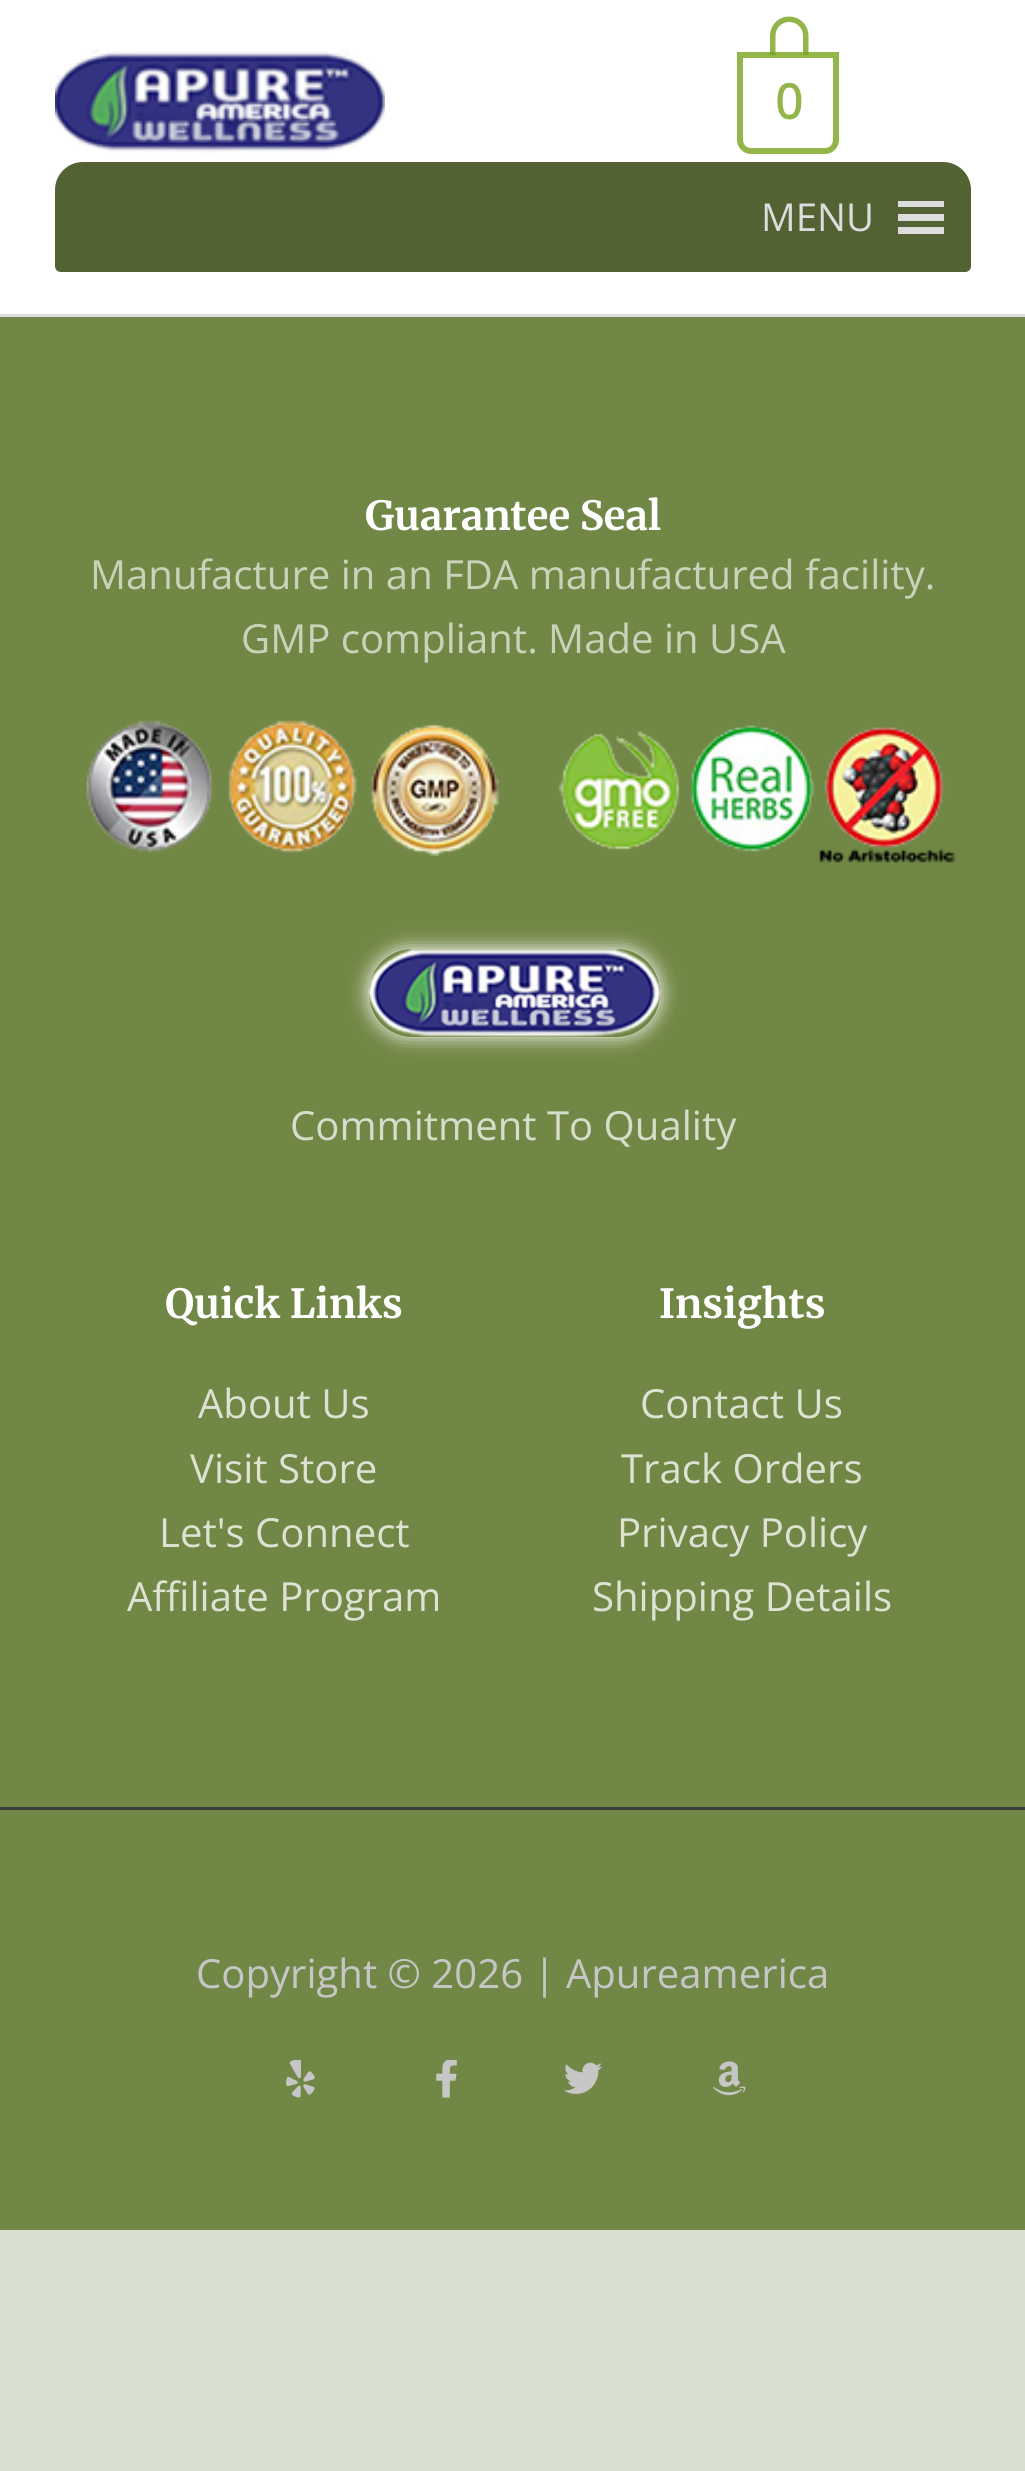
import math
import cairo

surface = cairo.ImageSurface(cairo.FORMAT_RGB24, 1025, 2471)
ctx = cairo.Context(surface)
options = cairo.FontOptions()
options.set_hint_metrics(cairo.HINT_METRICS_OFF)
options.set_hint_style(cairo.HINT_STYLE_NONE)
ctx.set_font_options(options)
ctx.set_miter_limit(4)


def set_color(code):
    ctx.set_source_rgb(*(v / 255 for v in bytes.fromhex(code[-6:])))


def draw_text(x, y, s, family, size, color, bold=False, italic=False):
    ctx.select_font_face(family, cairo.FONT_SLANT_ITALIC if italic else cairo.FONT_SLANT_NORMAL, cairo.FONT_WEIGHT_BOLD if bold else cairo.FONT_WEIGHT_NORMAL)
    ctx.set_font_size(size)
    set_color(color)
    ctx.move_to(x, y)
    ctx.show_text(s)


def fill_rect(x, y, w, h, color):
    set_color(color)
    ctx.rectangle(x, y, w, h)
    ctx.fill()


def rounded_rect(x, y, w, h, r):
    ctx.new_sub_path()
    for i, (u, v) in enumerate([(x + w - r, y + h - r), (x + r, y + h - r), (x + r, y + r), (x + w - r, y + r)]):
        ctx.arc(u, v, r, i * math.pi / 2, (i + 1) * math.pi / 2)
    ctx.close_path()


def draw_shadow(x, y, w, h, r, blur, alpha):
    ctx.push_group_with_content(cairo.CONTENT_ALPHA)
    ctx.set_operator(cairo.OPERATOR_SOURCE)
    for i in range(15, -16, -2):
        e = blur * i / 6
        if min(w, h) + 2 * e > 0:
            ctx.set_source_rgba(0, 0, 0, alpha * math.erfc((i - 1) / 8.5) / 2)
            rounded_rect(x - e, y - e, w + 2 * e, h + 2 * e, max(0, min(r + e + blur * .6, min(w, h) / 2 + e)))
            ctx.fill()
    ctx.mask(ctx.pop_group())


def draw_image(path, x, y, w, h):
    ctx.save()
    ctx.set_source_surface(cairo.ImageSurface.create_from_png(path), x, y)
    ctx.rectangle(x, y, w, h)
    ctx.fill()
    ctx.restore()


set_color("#d9dfcf")
ctx.paint()
fill_rect(0, 0, 1025, 314, "#ffffff")
fill_rect(0, 314, 1025, 3, "#dddddd")
draw_image("assets/img1.png", 55, 49, 330, 104)
ctx.new_path()
ctx.move_to(740, 55)
ctx.line_to(836, 55)
ctx.line_to(836, 140)
ctx.curve_to(836, 146, 831, 151, 825, 151)
ctx.line_to(751, 151)
ctx.curve_to(745, 151, 740, 146, 740, 140)
ctx.close_path()
set_color("#93b64b")
ctx.set_line_width(6)
ctx.stroke()
ctx.set_source_rgba(0.463, 0.639, 0.106, 0.79)
ctx.set_fill_rule(cairo.FILL_RULE_EVEN_ODD)
ctx.new_path()
ctx.move_to(789, 16.5)
ctx.curve_to(800, 16.5, 808.5, 25, 808.5, 36)
ctx.line_to(808.5, 55)
ctx.line_to(770, 55)
ctx.line_to(770, 36)
ctx.curve_to(770, 25, 778.5, 16.5, 789, 16.5)
ctx.close_path()
ctx.move_to(789, 22)
ctx.curve_to(797, 22, 803, 28, 803, 36)
ctx.line_to(803, 55)
ctx.line_to(775.5, 55)
ctx.line_to(775.5, 36)
ctx.curve_to(775.5, 28, 781.5, 22, 789, 22)
ctx.close_path()
ctx.fill()
draw_text(775, 119, "0", "Open Sans", 48, "#93b64b", bold=True)
set_color("#526232")
ctx.new_path()
ctx.move_to(83, 162)
ctx.line_to(943, 162)
ctx.curve_to(958.5, 162, 971, 174.5, 971, 190)
ctx.line_to(971, 266)
ctx.curve_to(971, 269.5, 968.5, 272, 965, 272)
ctx.line_to(61, 272)
ctx.curve_to(57.5, 272, 55, 269.5, 55, 266)
ctx.line_to(55, 190)
ctx.curve_to(55, 174.5, 67.5, 162, 83, 162)
ctx.close_path()
ctx.fill()
draw_text(761, 231, "MENU", "Open Sans", 38.5, "#dddddd")
ctx.set_fill_rule(cairo.FILL_RULE_WINDING)
ctx.new_path()
ctx.move_to(898, 234)
ctx.line_to(944, 234)
ctx.line_to(944, 227)
ctx.line_to(898, 227)
ctx.close_path()
ctx.move_to(898, 201)
ctx.line_to(898, 207)
ctx.line_to(944, 207)
ctx.line_to(944, 201)
ctx.close_path()
ctx.move_to(898, 221)
ctx.line_to(944, 221)
ctx.line_to(944, 214)
ctx.line_to(898, 214)
ctx.close_path()
ctx.fill()
fill_rect(0, 317, 1025, 1490, "#718745")
draw_text(365, 530, "Guarantee Seal", "Merriweather Light", 40.1, "#ffffff")
draw_text(90, 589, "Manufacture in an FDA manufactured facility.", "Open Sans", 40.1, "#cad3ba")
draw_text(241, 653, "GMP compliant. Made in USA", "Open Sans", 40.1, "#cad3ba")
draw_image("assets/img2.png", 86, 720, 414, 136)
draw_image("assets/img3.png", 558, 725, 398, 138)
ctx.save()
ctx.set_fill_rule(cairo.FILL_RULE_EVEN_ODD)
ctx.new_path()
ctx.move_to(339, 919)
ctx.line_to(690, 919)
ctx.line_to(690, 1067)
ctx.line_to(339, 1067)
ctx.close_path()
ctx.move_to(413, 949)
ctx.line_to(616, 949)
ctx.curve_to(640.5, 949, 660, 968.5, 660, 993)
ctx.curve_to(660, 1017.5, 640.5, 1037, 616, 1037)
ctx.line_to(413, 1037)
ctx.curve_to(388.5, 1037, 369, 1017.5, 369, 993)
ctx.curve_to(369, 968.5, 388.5, 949, 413, 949)
ctx.close_path()
ctx.clip()
set_color("#ffffff")
draw_shadow(369, 949, 291, 88, 44, 9.5, 1)
ctx.restore()
draw_image("assets/img4.png", 368, 948, 292, 89)
draw_text(290, 1140, "Commitment To Quality", "Open Sans", 40.1, "#d7ddcb")
draw_text(165, 1318, "Quick Links", "Merriweather Light", 40.1, "#ffffff")
draw_text(198, 1418, "About Us", "Open Sans", 40.1, "#dde2d2")
draw_text(190, 1483, "Visit Store", "Open Sans", 40.1, "#dde2d2")
draw_text(159, 1547, "Let's Connect", "Open Sans", 40.1, "#dde2d2")
draw_text(127, 1611, "Affiliate Program", "Open Sans", 40.1, "#dde2d2")
draw_text(659, 1318, "Insights", "Merriweather Light", 40.1, "#ffffff")
draw_text(640, 1418, "Contact Us", "Open Sans", 40.1, "#dde2d2")
draw_text(621, 1483, "Track Orders", "Open Sans", 40.1, "#dde2d2")
draw_text(617, 1547, "Privacy Policy", "Open Sans", 40.1, "#dde2d2")
draw_text(592, 1611, "Shipping Details", "Open Sans", 40.1, "#dde2d2")
fill_rect(0, 1810, 1025, 420, "#718745")
fill_rect(0, 1807, 1025, 3, "#3d3d3d")
draw_text(196, 1988, "Copyright © 2026 | Apureamerica", "Open Sans", 40.1, "#c6c6c6")
draw_image("assets/img5.png", 286, 2060, 29, 38)
draw_image("assets/img6.png", 436, 2060, 21, 38)
draw_image("assets/img7.png", 564, 2062, 38, 32)
draw_image("assets/img8.png", 712, 2061, 34, 35)
surface.write_to_png("output.png")
